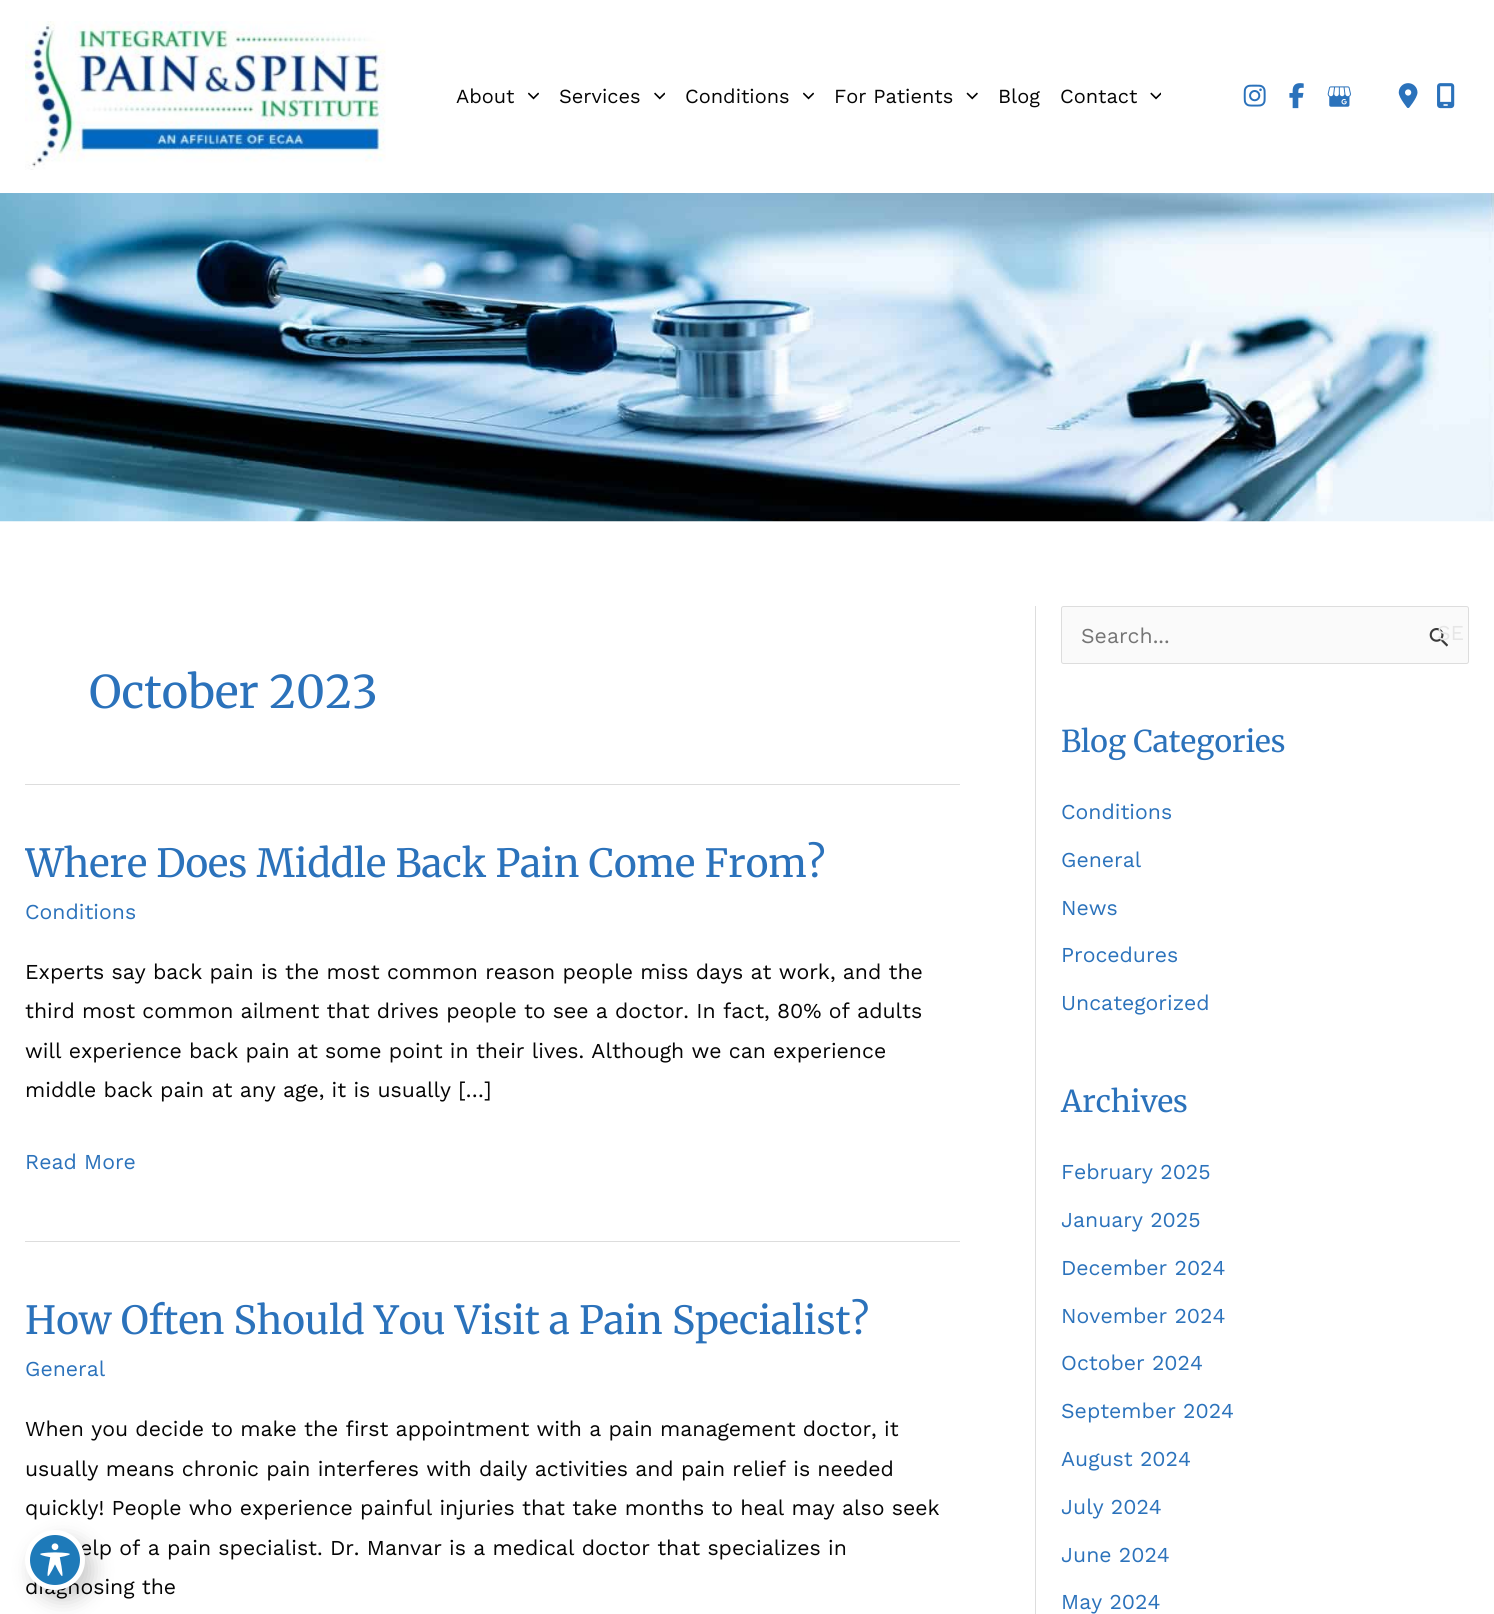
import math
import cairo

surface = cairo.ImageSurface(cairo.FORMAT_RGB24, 1494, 1614)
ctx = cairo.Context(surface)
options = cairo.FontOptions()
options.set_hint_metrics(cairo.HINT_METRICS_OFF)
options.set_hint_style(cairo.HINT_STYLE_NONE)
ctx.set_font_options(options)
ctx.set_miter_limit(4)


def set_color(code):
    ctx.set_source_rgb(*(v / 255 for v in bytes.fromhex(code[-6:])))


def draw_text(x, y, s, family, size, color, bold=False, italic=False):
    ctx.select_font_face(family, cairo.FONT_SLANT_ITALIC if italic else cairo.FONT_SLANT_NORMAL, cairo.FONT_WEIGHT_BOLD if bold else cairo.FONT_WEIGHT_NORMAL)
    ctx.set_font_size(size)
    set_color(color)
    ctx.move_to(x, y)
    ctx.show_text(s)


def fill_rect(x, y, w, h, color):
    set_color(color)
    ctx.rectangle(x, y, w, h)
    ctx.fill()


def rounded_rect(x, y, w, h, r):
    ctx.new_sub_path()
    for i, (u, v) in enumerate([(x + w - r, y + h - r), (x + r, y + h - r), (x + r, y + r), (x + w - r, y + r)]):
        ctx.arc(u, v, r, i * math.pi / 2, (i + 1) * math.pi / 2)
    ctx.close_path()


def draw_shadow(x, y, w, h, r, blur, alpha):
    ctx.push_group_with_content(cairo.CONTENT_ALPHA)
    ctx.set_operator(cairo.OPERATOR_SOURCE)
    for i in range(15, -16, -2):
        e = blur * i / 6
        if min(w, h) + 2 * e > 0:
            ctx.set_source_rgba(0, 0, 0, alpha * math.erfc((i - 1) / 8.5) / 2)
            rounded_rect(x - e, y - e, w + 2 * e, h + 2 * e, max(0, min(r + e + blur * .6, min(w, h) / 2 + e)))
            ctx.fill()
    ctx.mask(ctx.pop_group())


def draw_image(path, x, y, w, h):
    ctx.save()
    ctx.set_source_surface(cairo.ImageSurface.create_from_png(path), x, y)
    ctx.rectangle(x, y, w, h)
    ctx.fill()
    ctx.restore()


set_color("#ffffff")
ctx.paint()
draw_image("assets/img1.png", 25, 21, 361, 149)
draw_text(456, 103, "About", "Work Sans", 20, "#050505")
draw_image("assets/img2.png", 528, 92, 11, 8)
draw_text(559, 103, "Services", "Work Sans", 20, "#050505")
draw_image("assets/img3.png", 654, 92, 11, 8)
draw_text(685, 103, "Conditions", "Work Sans", 20, "#050505")
draw_image("assets/img2.png", 803, 92, 11, 8)
draw_text(834, 103, "For Patients", "Work Sans", 20, "#050505")
draw_image("assets/img4.png", 966, 92, 12, 8)
draw_text(998, 103, "Blog", "Work Sans", 20, "#050505")
draw_text(1060, 103, "Contact", "Work Sans", 20, "#050505")
draw_image("assets/img5.png", 1150, 92, 11, 8)
draw_image("assets/img6.png", 1243, 84, 23, 23)
draw_image("assets/img7.png", 1289, 83, 15, 26)
draw_image("assets/img8.png", 1327, 86, 24, 21)
draw_image("assets/img9.png", 1398, 83, 20, 25)
draw_image("assets/img10.png", 1437, 83, 18, 26)
draw_image("assets/img11.png", 0, 193, 1494, 329)
fill_rect(1035, 606, 1, 1008, "#dddddd")
fill_rect(25, 784, 935, 1, "#dddddd")
draw_text(89, 708, "October 2023", "Merriweather", 45, "#2b72bb")
fill_rect(25, 1241, 935, 1, "#dddddd")
ctx.save()
ctx.rectangle(25, 839, 935, 402)
ctx.clip()
draw_text(25, 877, "Where Does Middle Back Pain Come From?", "Merriweather", 38.75, "#2b72bb")
ctx.restore()
draw_text(25, 919, "Conditions", "Work Sans", 21.25, "#2b72bb")
draw_text(25, 979, "Experts say back pain is the most common reason people miss days at work, and the", "Work Sans", 21.25, "#050505")
draw_text(25, 1018, "third most common ailment that drives people to see a doctor. In fact, 80% of adults", "Work Sans", 21.25, "#050505")
draw_text(25, 1058, "will experience back pain at some point in their lives. Although we can experience", "Work Sans", 21.25, "#050505")
draw_text(25, 1097, "middle back pain at any age, it is usually […]", "Work Sans", 21.25, "#050505")
draw_text(25, 1169, "Read More", "Work Sans", 21.25, "#2b72bb")
draw_text(25, 1334, "How Often Should You Visit a Pain Specialist?", "Merriweather", 38.75, "#2b72bb")
draw_text(25, 1376, "General", "Work Sans", 21.25, "#2b72bb")
draw_text(25, 1436, "When you decide to make the first appointment with a pain management doctor, it", "Work Sans", 21.25, "#050505")
draw_text(25, 1476, "usually means chronic pain interferes with daily activities and pain relief is needed", "Work Sans", 21.25, "#050505")
draw_text(25, 1515, "quickly! People who experience painful injuries that take months to heal may also seek", "Work Sans", 21.25, "#050505")
draw_text(80, 1555, "elp of a pain specialist. Dr. Manvar is a medical doctor that specializes in", "Work Sans", 21.25, "#050505")
draw_text(25, 1594, "diagnosing the", "Work Sans", 21.25, "#050505")
set_color("#fafafa")
rounded_rect(1061.5, 606.5, 407, 57, 2)
ctx.fill_preserve()
set_color("#dddddd")
ctx.set_line_width(1)
ctx.stroke()
draw_text(1081, 643, "Search...", "Work Sans", 21.25, "#757575")
draw_image("assets/img12.png", 1429, 628, 19, 19)
draw_text(1437, 640, "SE", "Work Sans", 21.25, "#e6e6e6")
draw_text(1061, 752, "Blog Categories", "Merriweather", 30, "#2b72bb")
draw_text(1061, 819, "Conditions", "Work Sans", 21.25, "#2b72bb")
draw_text(1061, 867, "General", "Work Sans", 21.25, "#2b72bb")
draw_text(1061, 915, "News", "Work Sans", 21.25, "#2b72bb")
draw_text(1061, 962, "Procedures", "Work Sans", 21.25, "#2b72bb")
draw_text(1061, 1010, "Uncategorized", "Work Sans", 21.25, "#2b72bb")
draw_text(1061, 1112, "Archives", "Merriweather", 30, "#2b72bb")
draw_text(1061, 1179, "February 2025", "Work Sans", 21.25, "#2b72bb")
draw_text(1061, 1227, "January 2025", "Work Sans", 21.25, "#2b72bb")
draw_text(1061, 1275, "December 2024", "Work Sans", 21.25, "#2b72bb")
draw_text(1061, 1323, "November 2024", "Work Sans", 21.25, "#2b72bb")
draw_text(1061, 1370, "October 2024", "Work Sans", 21.25, "#2b72bb")
draw_text(1061, 1418, "September 2024", "Work Sans", 21.25, "#2b72bb")
draw_text(1061, 1466, "August 2024", "Work Sans", 21.25, "#2b72bb")
draw_text(1061, 1514, "July 2024", "Work Sans", 21.25, "#2b72bb")
draw_text(1061, 1562, "June 2024", "Work Sans", 21.25, "#2b72bb")
draw_text(1061, 1609, "May 2024", "Work Sans", 21.25, "#2b72bb")
set_color("#000000")
draw_shadow(33, 1540, 60, 60, 30, 10, 0.2)
set_color("#1e7ab9")
ctx.arc(55, 1560, 27.5, 0, 2 * math.pi)
ctx.fill_preserve()
set_color("#ffffff")
ctx.set_line_width(5)
ctx.stroke()
draw_image("assets/img13.png", 40, 1543, 30, 33)
surface.write_to_png("output.png")
